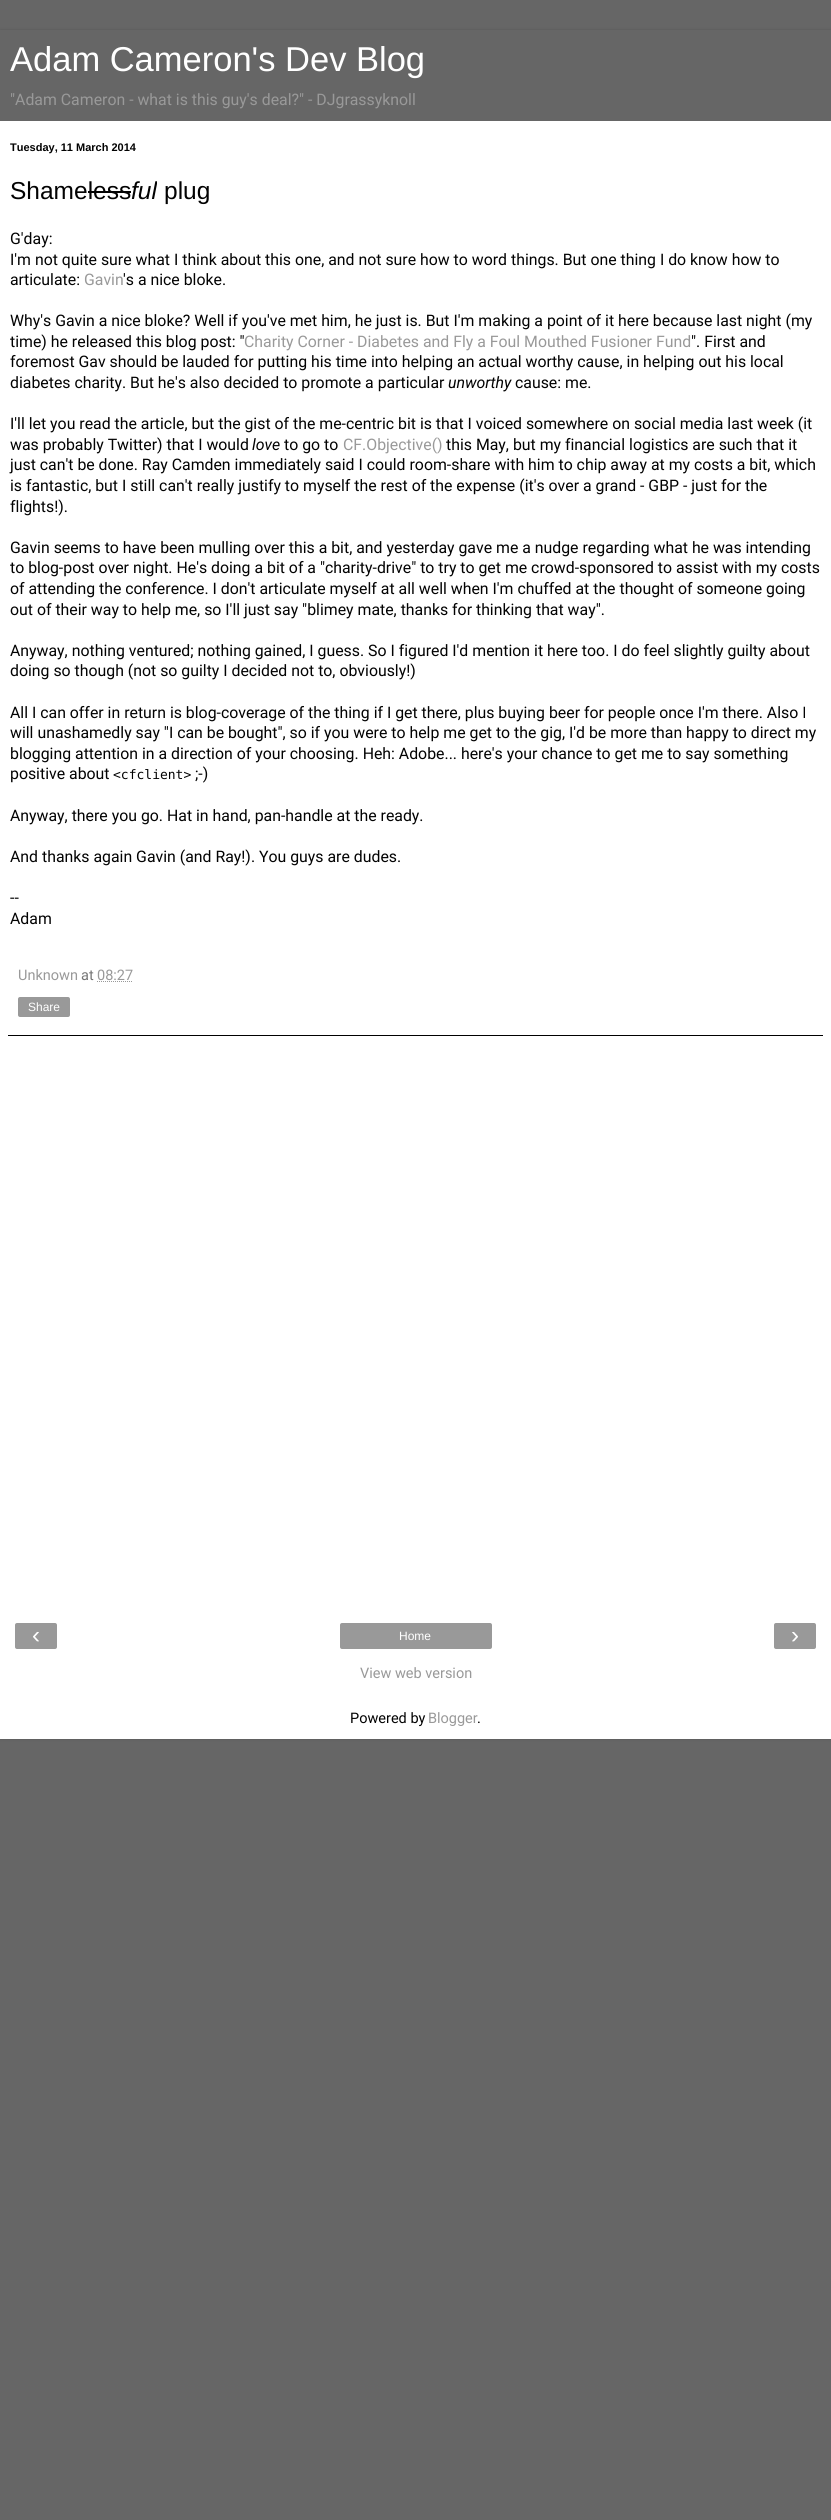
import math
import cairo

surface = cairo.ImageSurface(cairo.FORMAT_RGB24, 831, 2520)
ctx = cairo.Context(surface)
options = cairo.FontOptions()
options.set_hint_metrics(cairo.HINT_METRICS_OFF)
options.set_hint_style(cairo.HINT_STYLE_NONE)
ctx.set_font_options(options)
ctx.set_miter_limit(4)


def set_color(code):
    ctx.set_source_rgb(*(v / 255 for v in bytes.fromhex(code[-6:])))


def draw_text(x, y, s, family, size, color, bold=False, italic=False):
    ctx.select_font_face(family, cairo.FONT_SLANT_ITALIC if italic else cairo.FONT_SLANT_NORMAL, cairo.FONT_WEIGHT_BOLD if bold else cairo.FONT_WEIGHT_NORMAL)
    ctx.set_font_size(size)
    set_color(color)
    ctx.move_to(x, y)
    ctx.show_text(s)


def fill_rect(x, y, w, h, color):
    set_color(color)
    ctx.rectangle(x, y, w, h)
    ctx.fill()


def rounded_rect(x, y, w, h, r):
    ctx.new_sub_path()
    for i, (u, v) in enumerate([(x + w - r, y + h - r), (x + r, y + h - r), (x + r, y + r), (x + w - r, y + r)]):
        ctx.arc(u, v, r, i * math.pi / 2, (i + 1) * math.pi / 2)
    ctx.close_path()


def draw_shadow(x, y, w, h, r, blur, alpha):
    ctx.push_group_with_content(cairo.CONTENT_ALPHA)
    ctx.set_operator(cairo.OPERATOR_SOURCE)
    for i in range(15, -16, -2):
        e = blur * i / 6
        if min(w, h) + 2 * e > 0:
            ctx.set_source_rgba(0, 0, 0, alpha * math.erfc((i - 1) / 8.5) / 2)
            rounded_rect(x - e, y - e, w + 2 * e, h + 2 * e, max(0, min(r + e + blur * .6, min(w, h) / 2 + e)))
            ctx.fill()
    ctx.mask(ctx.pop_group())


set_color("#666666")
ctx.paint()
set_color("#000000")
draw_shadow(0, 30, 831, 1709, 0, 1.5, 0.15)
fill_rect(0, 121, 831, 1618, "#ffffff")
fill_rect(0, 30, 831, 91, "#666666")
draw_text(10, 71, "Adam Cameron's Dev Blog", "Liberation Sans", 34.5, "#ffffff")
draw_text(10, 105, "\"Adam Cameron - what is this guy's deal?\" - DJgrassyknoll", "Roboto", 15.85, "#999999")
draw_text(10, 151, "Tuesday, 11 March 2014", "Liberation Sans", 11, "#020202", bold=True)
draw_text(10, 199, "Shameless", "Liberation Sans", 24.5, "#020202")
draw_text(131, 199, "ful", "Liberation Sans", 24.5, "#020202", italic=True)
draw_text(164, 199, "plug", "Liberation Sans", 24.5, "#020202")
fill_rect(88, 191, 43, 2, "#020202")
draw_text(10, 244, "G'day:", "Roboto", 15.85, "#020202")
draw_text(10, 265, "I'm not quite sure what I think about this one, and not sure how to word things. But one thing I do know how to", "Roboto", 15.85, "#020202")
draw_text(10, 285, "articulate:", "Roboto", 15.85, "#020202")
draw_text(84, 285, "Gavin", "Roboto", 15.85, "#999999")
draw_text(123, 285, "'s a nice bloke.", "Roboto", 15.85, "#020202")
draw_text(10, 326, "Why's Gavin a nice bloke? Well if you've met him, he just is. But I'm making a point of it here because last night (my", "Roboto", 15.85, "#020202")
draw_text(10, 347, "time) he released this blog post: \"", "Roboto", 15.85, "#020202")
draw_text(244, 347, "Charity Corner - Diabetes and Fly a Foul Mouthed Fusioner Fund", "Roboto", 15.85, "#999999")
draw_text(691, 347, "\". First and", "Roboto", 15.85, "#020202")
draw_text(10, 367, "foremost Gav should be lauded for putting his time into helping an actual worthy cause, in helping out his local", "Roboto", 15.85, "#020202")
draw_text(10, 388, "diabetes charity. But he's also decided to promote a particular", "Roboto", 15.85, "#020202")
draw_text(448, 388, "unworthy", "Roboto", 15.85, "#020202", italic=True)
draw_text(515, 388, "cause: me.", "Roboto", 15.85, "#020202")
draw_text(10, 429, "I'll let you read the article, but the gist of the me-centric bit is that I voiced somewhere on social media last week (it", "Roboto", 15.85, "#020202")
draw_text(10, 450, "was probably Twitter) that I would", "Roboto", 15.85, "#020202")
draw_text(252, 450, "love", "Roboto", 15.85, "#020202", italic=True)
draw_text(284, 450, "to go to", "Roboto", 15.85, "#020202")
draw_text(343, 450, "CF.Objective()", "Roboto", 15.85, "#999999")
draw_text(446, 450, "this May, but my financial logistics are such that it", "Roboto", 15.85, "#020202")
draw_text(10, 470, "just can't be done. Ray Camden immediately said I could room-share with him to chip away at my costs a bit, which", "Roboto", 15.85, "#020202")
draw_text(10, 491, "is fantastic, but I still can't really justify to myself the rest of the expense (it's over a grand - GBP - just for the", "Roboto", 15.85, "#020202")
draw_text(10, 512, "flights!).", "Roboto", 15.85, "#020202")
draw_text(10, 553, "Gavin seems to have been mulling over this a bit, and yesterday gave me a nudge regarding what he was intending", "Roboto", 15.85, "#020202")
draw_text(10, 573, "to blog-post over night. He's doing a bit of a \"charity-drive\" to try to get me crowd-sponsored to assist with my costs", "Roboto", 15.85, "#020202")
draw_text(10, 594, "of attending the conference. I don't articulate myself at all well when I'm chuffed at the thought of someone going", "Roboto", 15.85, "#020202")
draw_text(10, 615, "out of their way to help me, so I'll just say \"blimey mate, thanks for thinking that way\".", "Roboto", 15.85, "#020202")
draw_text(10, 656, "Anyway, nothing ventured; nothing gained, I guess. So I figured I'd mention it here too. I do feel slightly guilty about", "Roboto", 15.85, "#020202")
draw_text(10, 676, "doing so though (not so guilty I decided not to, obviously!)", "Roboto", 15.85, "#020202")
draw_text(10, 718, "All I can offer in return is blog-coverage of the thing if I get there, plus buying beer for people once I'm there. Also I", "Roboto", 15.85, "#020202")
draw_text(10, 738, "will unashamedly say \"I can be bought\", so if you were to help me get to the gig, I'd be more than happy to direct my", "Roboto", 15.85, "#020202")
draw_text(10, 759, "blogging attention in a direction of your choosing. Heh: Adobe... here's your chance to get me to say something", "Roboto", 15.85, "#020202")
draw_text(10, 779, "positive about", "Roboto", 15.85, "#020202")
draw_text(113, 779, "<cfclient>", "DejaVu Sans Mono", 13, "#020202")
draw_text(195, 779, ";-)", "Roboto", 15.85, "#020202")
draw_text(10, 821, "Anyway, there you go. Hat in hand, pan-handle at the ready.", "Roboto", 15.85, "#020202")
draw_text(10, 862, "And thanks again Gavin (and Ray!). You guys are dudes.", "Roboto", 15.85, "#020202")
draw_text(10, 903, "--", "Roboto", 15.85, "#020202")
draw_text(10, 924, "Adam", "Roboto", 15.85, "#020202")
fill_rect(8, 1035, 815, 1, "#000000")
draw_text(18, 980, "Unknown", "Roboto", 14.5, "#999999")
draw_text(81, 980, "at", "Roboto", 14.5, "#757575")
draw_text(97, 980, "08:27", "Roboto", 14.5, "#999999")
ctx.new_path()
ctx.move_to(97, 981.5)
ctx.line_to(133, 981.5)
ctx.set_line_width(1)
ctx.set_dash([1, 1])
ctx.stroke()
rounded_rect(18, 997, 52, 20, 2)
ctx.fill()
draw_text(28, 1011, "Share", "Liberation Sans", 12, "#ffffff")
set_color("#999999")
rounded_rect(15, 1623, 42, 26, 2)
ctx.fill()
draw_text(32, 1643, "‹", "Liberation Sans", 24, "#ffffff")
set_color("#999999")
rounded_rect(340, 1623, 152, 26, 2)
ctx.fill()
draw_text(399, 1640, "Home", "Liberation Sans", 12, "#ffffff")
set_color("#999999")
rounded_rect(774, 1623, 42, 26, 2)
ctx.fill()
draw_text(791, 1643, "›", "Liberation Sans", 24, "#ffffff")
draw_text(360, 1678, "View web version", "Roboto", 14.5, "#999999")
draw_text(350, 1723, "Powered by", "Roboto", 14.5, "#020202")
draw_text(428, 1723, "Blogger", "Roboto", 14.5, "#999999")
draw_text(477, 1723, ".", "Roboto", 14.5, "#020202")
surface.write_to_png("output.png")
